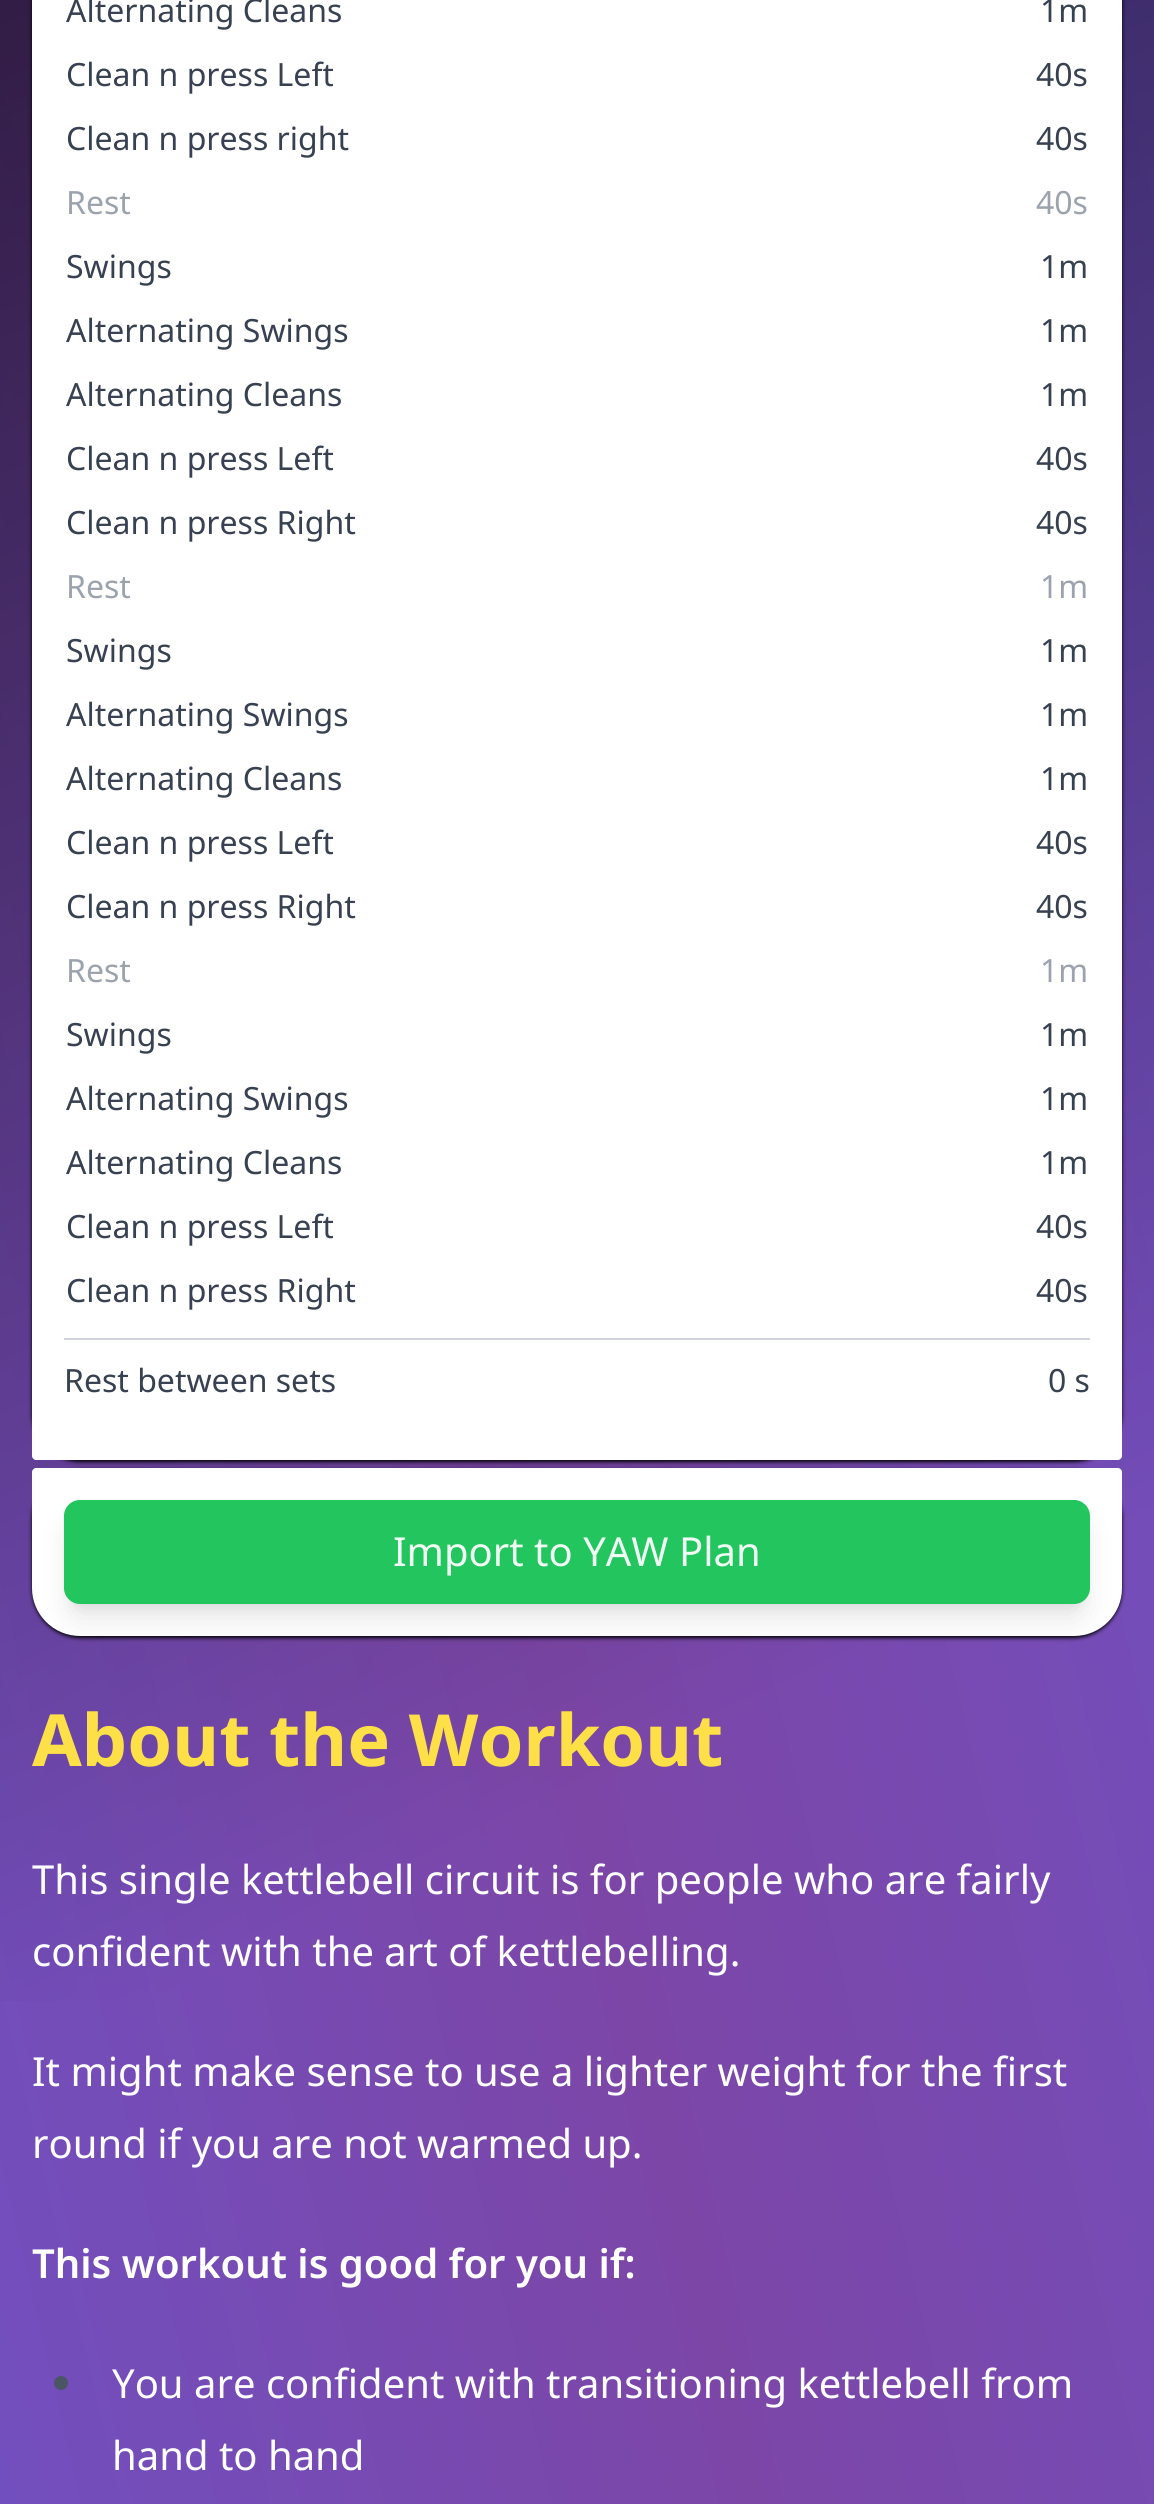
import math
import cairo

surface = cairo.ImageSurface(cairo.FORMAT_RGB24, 1154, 2504)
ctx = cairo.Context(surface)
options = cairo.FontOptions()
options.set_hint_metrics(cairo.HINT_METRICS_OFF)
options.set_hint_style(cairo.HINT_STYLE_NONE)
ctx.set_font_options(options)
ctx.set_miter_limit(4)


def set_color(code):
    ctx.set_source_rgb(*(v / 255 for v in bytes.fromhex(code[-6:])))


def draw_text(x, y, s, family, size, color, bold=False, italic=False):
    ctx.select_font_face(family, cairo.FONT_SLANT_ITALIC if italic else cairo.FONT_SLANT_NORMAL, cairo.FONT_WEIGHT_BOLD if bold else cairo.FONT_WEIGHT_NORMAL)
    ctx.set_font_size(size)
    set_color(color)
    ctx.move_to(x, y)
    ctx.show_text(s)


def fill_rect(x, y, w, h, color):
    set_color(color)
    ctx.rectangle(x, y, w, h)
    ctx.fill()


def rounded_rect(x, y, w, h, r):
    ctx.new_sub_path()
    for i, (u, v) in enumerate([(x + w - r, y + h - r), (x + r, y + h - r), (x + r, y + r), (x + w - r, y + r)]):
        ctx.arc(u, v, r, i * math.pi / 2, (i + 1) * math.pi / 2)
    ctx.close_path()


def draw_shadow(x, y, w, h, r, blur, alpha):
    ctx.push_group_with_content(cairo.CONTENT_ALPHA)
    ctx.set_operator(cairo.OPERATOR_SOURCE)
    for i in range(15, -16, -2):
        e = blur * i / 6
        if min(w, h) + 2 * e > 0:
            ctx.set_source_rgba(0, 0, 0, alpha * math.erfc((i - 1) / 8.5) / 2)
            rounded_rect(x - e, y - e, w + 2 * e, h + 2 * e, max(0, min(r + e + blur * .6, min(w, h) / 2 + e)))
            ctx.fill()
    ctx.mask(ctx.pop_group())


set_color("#ffffff")
ctx.paint()
gradient = cairo.LinearGradient(-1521, 1743, 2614, 775)
gradient.add_color_stop_rgba(0, 0.376, 0.373, 0.906, 1)
gradient.add_color_stop_rgba(0.48, 0.486, 0.275, 0.655, 1)
gradient.add_color_stop_rgba(1, 0.376, 0.373, 0.906, 1)
ctx.set_source(gradient)
ctx.rectangle(0, 0, 1154, 2504)
ctx.fill()
gradient = cairo.LinearGradient(-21, 2, 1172, 2496)
gradient.add_color_stop_rgba(0, 0, 0, 0, 0.6)
gradient.add_color_stop_rgba(0.68, 0, 0, 0, 0)
ctx.set_source(gradient)
ctx.rectangle(0, 0, 1154, 2001)
ctx.fill()
set_color("#000000")
draw_shadow(32, -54, 1090, 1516, 48, 2, 1)
set_color("#ffffff")
ctx.new_path()
ctx.move_to(80, -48)
ctx.line_to(1074, -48)
ctx.curve_to(1100.5, -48, 1122, -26.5, 1122, 0)
ctx.line_to(1122, 1456)
ctx.curve_to(1122, 1458, 1120, 1460, 1118, 1460)
ctx.line_to(36, 1460)
ctx.curve_to(34, 1460, 32, 1458, 32, 1456)
ctx.line_to(32, 0)
ctx.curve_to(32, -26.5, 53.5, -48, 80, -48)
ctx.close_path()
ctx.fill()
draw_text(66, 22, "Alternating Cleans", "Noto Sans", 32, "#374151")
draw_text(1040, 22, "1m", "Noto Sans", 32, "#374151")
draw_text(66, 86, "Clean n press Left", "Noto Sans", 32, "#374151")
draw_text(1036, 86, "40s", "Noto Sans", 32, "#374151")
draw_text(66, 150, "Clean n press right", "Noto Sans", 32, "#374151")
draw_text(1036, 150, "40s", "Noto Sans", 32, "#374151")
draw_text(66, 214, "Rest", "Noto Sans", 32, "#9ca3af")
draw_text(1036, 214, "40s", "Noto Sans", 32, "#9ca3af")
draw_text(66, 278, "Swings", "Noto Sans", 32, "#374151")
draw_text(1040, 278, "1m", "Noto Sans", 32, "#374151")
draw_text(66, 342, "Alternating Swings", "Noto Sans", 32, "#374151")
draw_text(1040, 342, "1m", "Noto Sans", 32, "#374151")
draw_text(66, 406, "Alternating Cleans", "Noto Sans", 32, "#374151")
draw_text(1040, 406, "1m", "Noto Sans", 32, "#374151")
draw_text(66, 470, "Clean n press Left", "Noto Sans", 32, "#374151")
draw_text(1036, 470, "40s", "Noto Sans", 32, "#374151")
draw_text(66, 534, "Clean n press Right", "Noto Sans", 32, "#374151")
draw_text(1036, 534, "40s", "Noto Sans", 32, "#374151")
draw_text(66, 598, "Rest", "Noto Sans", 32, "#9ca3af")
draw_text(1040, 598, "1m", "Noto Sans", 32, "#9ca3af")
draw_text(66, 662, "Swings", "Noto Sans", 32, "#374151")
draw_text(1040, 662, "1m", "Noto Sans", 32, "#374151")
draw_text(66, 726, "Alternating Swings", "Noto Sans", 32, "#374151")
draw_text(1040, 726, "1m", "Noto Sans", 32, "#374151")
draw_text(66, 790, "Alternating Cleans", "Noto Sans", 32, "#374151")
draw_text(1040, 790, "1m", "Noto Sans", 32, "#374151")
draw_text(66, 854, "Clean n press Left", "Noto Sans", 32, "#374151")
draw_text(1036, 854, "40s", "Noto Sans", 32, "#374151")
draw_text(66, 918, "Clean n press Right", "Noto Sans", 32, "#374151")
draw_text(1036, 918, "40s", "Noto Sans", 32, "#374151")
draw_text(66, 982, "Rest", "Noto Sans", 32, "#9ca3af")
draw_text(1040, 982, "1m", "Noto Sans", 32, "#9ca3af")
draw_text(66, 1046, "Swings", "Noto Sans", 32, "#374151")
draw_text(1040, 1046, "1m", "Noto Sans", 32, "#374151")
draw_text(66, 1110, "Alternating Swings", "Noto Sans", 32, "#374151")
draw_text(1040, 1110, "1m", "Noto Sans", 32, "#374151")
draw_text(66, 1174, "Alternating Cleans", "Noto Sans", 32, "#374151")
draw_text(1040, 1174, "1m", "Noto Sans", 32, "#374151")
draw_text(66, 1238, "Clean n press Left", "Noto Sans", 32, "#374151")
draw_text(1036, 1238, "40s", "Noto Sans", 32, "#374151")
draw_text(66, 1302, "Clean n press Right", "Noto Sans", 32, "#374151")
draw_text(1036, 1302, "40s", "Noto Sans", 32, "#374151")
fill_rect(64, 1338, 1026, 2, "#d1d5db")
draw_text(64, 1392, "Rest between sets", "Noto Sans", 32, "#374151")
draw_text(1048, 1392, "0 s", "Noto Sans", 32, "#374151")
set_color("#000000")
draw_shadow(32, 1470, 1090, 168, 48, 2, 1)
set_color("#ffffff")
ctx.new_path()
ctx.move_to(36, 1468)
ctx.line_to(1118, 1468)
ctx.curve_to(1120, 1468, 1122, 1470, 1122, 1472)
ctx.line_to(1122, 1588)
ctx.curve_to(1122, 1614.5, 1100.5, 1636, 1074, 1636)
ctx.line_to(80, 1636)
ctx.curve_to(53.5, 1636, 32, 1614.5, 32, 1588)
ctx.line_to(32, 1472)
ctx.curve_to(32, 1470, 34, 1468, 36, 1468)
ctx.close_path()
ctx.fill()
set_color("#000000")
draw_shadow(72, 1516, 1010, 88, 8, 6, 0.1)
draw_shadow(70, 1526, 1014, 92, 10, 15, 0.1)
set_color("#22c55e")
rounded_rect(64, 1500, 1026, 104, 16)
ctx.fill()
draw_text(393, 1566, "Import to YAW Plan", "Noto Sans", 40, "#f0fdf4")
draw_text(32, 1766, "About the Workout", "Noto Sans", 72, "#fde047", bold=True)
draw_text(32, 1894, "This single kettlebell circuit is for people who are fairly", "Noto Sans", 40, "#ffffff")
draw_text(32, 1966, "confident with the art of kettlebelling.", "Noto Sans", 40, "#ffffff")
draw_text(32, 2086, "It might make sense to use a lighter weight for the first", "Noto Sans", 40, "#ffffff")
draw_text(32, 2158, "round if you are not warmed up.", "Noto Sans", 40, "#ffffff")
draw_text(32, 2278, "This workout is good for you if:", "Noto Sans SemiBold", 40, "#ffffff")
set_color("#4b5563")
ctx.new_path()
ctx.arc(61, 2383, 7, 0, 2 * math.pi)
ctx.fill()
draw_text(112, 2398, "You are confident with transitioning kettlebell from", "Noto Sans", 40, "#ffffff")
draw_text(112, 2470, "hand to hand", "Noto Sans", 40, "#ffffff")
surface.write_to_png("output.png")
